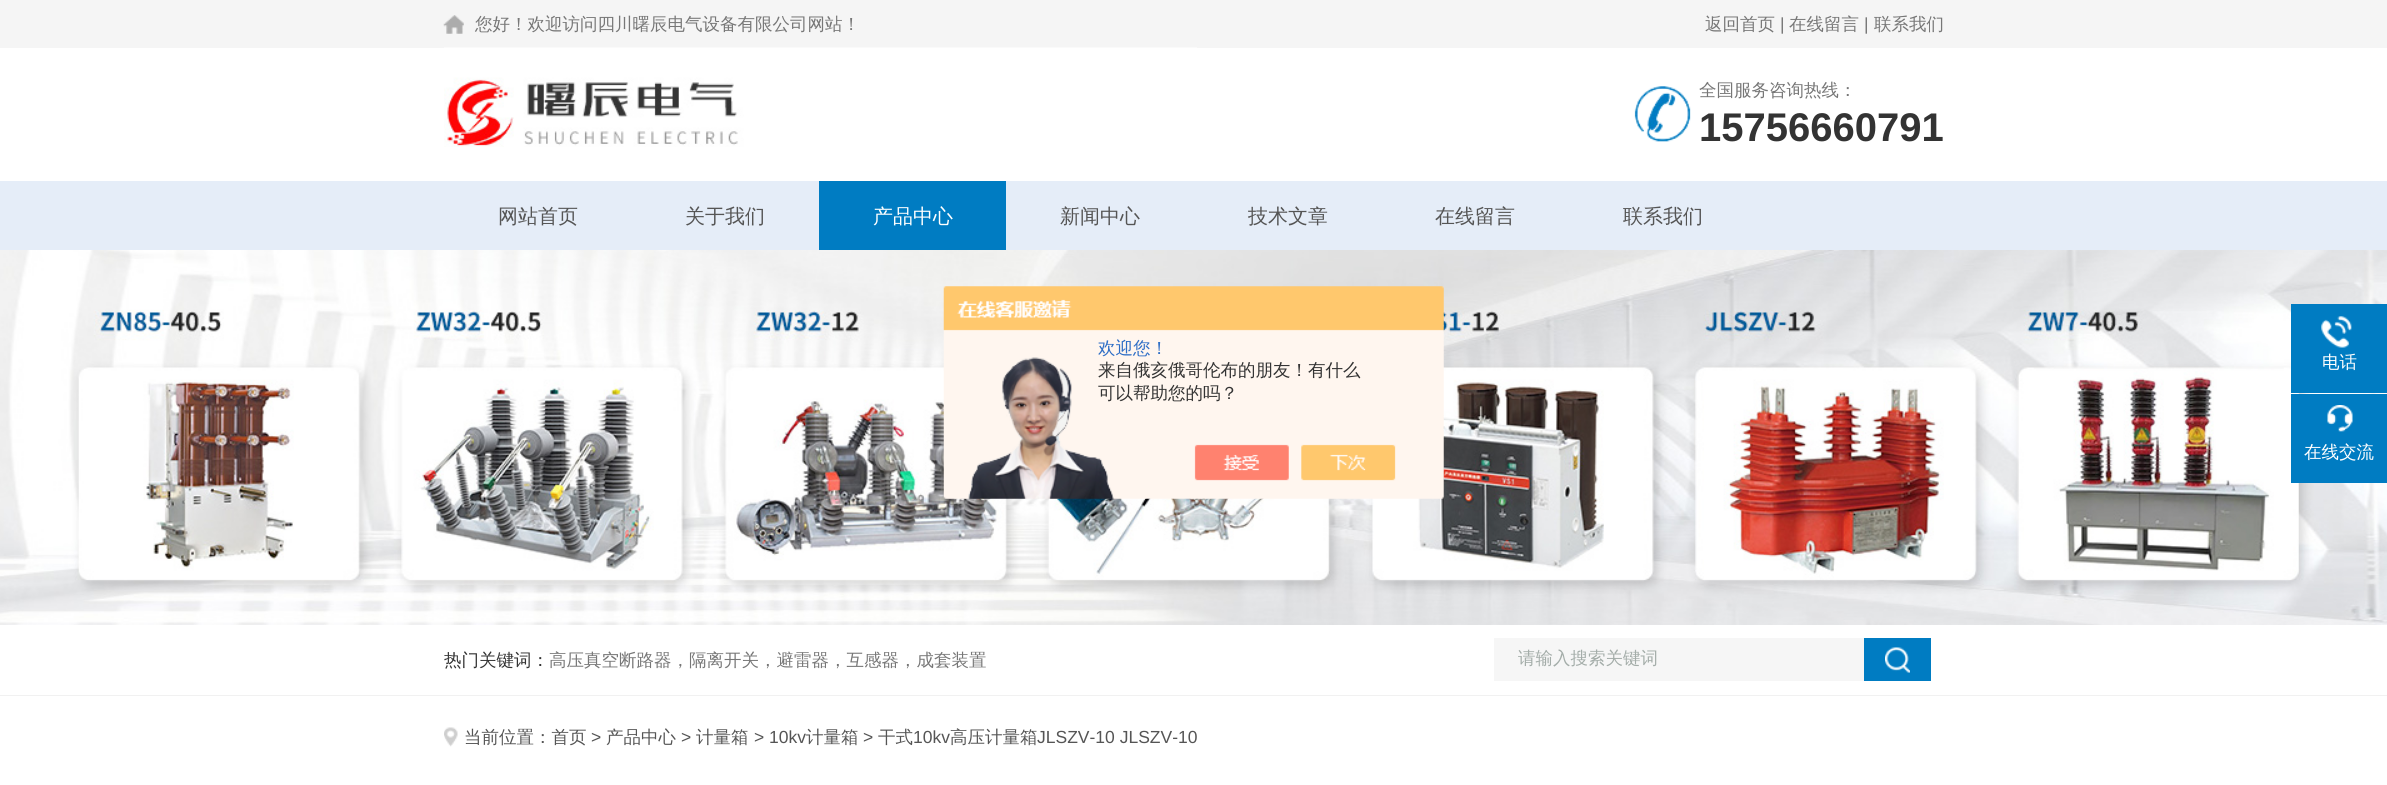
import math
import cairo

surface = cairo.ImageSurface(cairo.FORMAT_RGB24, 2387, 785)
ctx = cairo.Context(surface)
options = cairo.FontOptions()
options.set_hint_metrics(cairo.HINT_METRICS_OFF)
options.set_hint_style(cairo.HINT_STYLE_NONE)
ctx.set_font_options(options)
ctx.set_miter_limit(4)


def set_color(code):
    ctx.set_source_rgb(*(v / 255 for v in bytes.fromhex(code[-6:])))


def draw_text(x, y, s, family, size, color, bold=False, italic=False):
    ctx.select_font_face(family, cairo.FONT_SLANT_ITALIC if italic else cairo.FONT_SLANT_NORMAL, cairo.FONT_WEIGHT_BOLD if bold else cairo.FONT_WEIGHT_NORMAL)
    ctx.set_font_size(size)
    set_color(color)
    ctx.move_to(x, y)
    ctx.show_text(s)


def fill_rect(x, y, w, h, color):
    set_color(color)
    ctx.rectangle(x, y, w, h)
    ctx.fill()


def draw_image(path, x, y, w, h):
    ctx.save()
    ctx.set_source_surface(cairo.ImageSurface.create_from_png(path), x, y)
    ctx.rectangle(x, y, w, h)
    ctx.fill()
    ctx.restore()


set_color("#ffffff")
ctx.paint()
fill_rect(0, 0, 2387, 48, "#f5f5f5")
draw_image("assets/img1.png", 443, 15, 21, 19)
draw_text(475, 30, "您好！欢迎访问四川曙辰电气设备有限公司网站！", "WenQuanYi Zen Hei Medium", 17.5, "#777777")
draw_text(1705, 30, "返回首页", "WenQuanYi Zen Hei Medium", 17.5, "#777777")
draw_text(1780, 30, "|", "Liberation Sans", 17.5, "#777777")
draw_text(1789, 30, "在线留言", "WenQuanYi Zen Hei Medium", 17.5, "#777777")
draw_text(1864, 30, "|", "Liberation Sans", 17.5, "#777777")
draw_text(1874, 30, "联系我们", "WenQuanYi Zen Hei Medium", 17.5, "#777777")
draw_image("assets/img2.png", 444, 47, 753, 100)
draw_image("assets/img3.png", 1634, 86, 57, 56)
draw_text(1699, 96, "全国服务咨询热线：", "WenQuanYi Zen Hei Medium", 17.5, "#777777")
draw_text(1699, 141, "15756660791", "Liberation Sans", 40, "#333333", bold=True)
fill_rect(0, 181, 2387, 69, "#e5edf8")
draw_text(498, 223, "网站首页", "WenQuanYi Zen Hei Medium", 20, "#555555")
draw_text(685, 223, "关于我们", "WenQuanYi Zen Hei Medium", 20, "#555555")
fill_rect(819, 181, 187, 69, "#007cc2")
draw_text(873, 223, "产品中心", "WenQuanYi Zen Hei Medium", 20, "#ffffff")
draw_text(1060, 223, "新闻中心", "WenQuanYi Zen Hei Medium", 20, "#555555")
draw_text(1248, 223, "技术文章", "WenQuanYi Zen Hei Medium", 20, "#555555")
draw_text(1435, 223, "在线留言", "WenQuanYi Zen Hei Medium", 20, "#555555")
draw_text(1623, 223, "联系我们", "WenQuanYi Zen Hei Medium", 20, "#555555")
draw_image("assets/img4.png", 0, 250, 2387, 375)
draw_image("assets/img5.png", 943, 286, 501, 213)
draw_text(1098, 354, "欢迎您！", "WenQuanYi Zen Hei Medium", 17.5, "#2e6ec6")
draw_text(1098, 376, "来自俄亥俄哥伦布的朋友！有什么", "WenQuanYi Zen Hei Medium", 17.5, "#333333")
draw_text(1098, 399, "可以帮助您的吗？", "WenQuanYi Zen Hei Medium", 17.5, "#333333")
fill_rect(2291, 304, 96, 89, "#007cc2")
draw_image("assets/img6.png", 2321, 316, 31, 32)
draw_text(2322, 368, "电话", "WenQuanYi Zen Hei Medium", 17.5, "#ffffff")
fill_rect(2291, 394, 96, 89, "#007cc2")
draw_image("assets/img7.png", 2327, 405, 26, 27)
draw_text(2304, 458, "在线交流", "WenQuanYi Zen Hei Medium", 17.5, "#ffffff")
fill_rect(0, 695, 2387, 1, "#f1f1f1")
draw_text(444, 666, "热门关键词：", "WenQuanYi Zen Hei Medium", 17.5, "#333333")
draw_text(549, 666, "高压真空断路器，隔离开关，避雷器，互感器，成套装置", "WenQuanYi Zen Hei Medium", 17.5, "#777777")
fill_rect(1494, 638, 370, 43, "#f6f6f6")
draw_text(1518, 664, "请输入搜索关键词", "WenQuanYi Zen Hei Medium", 17.5, "#a4ada9")
fill_rect(1864, 638, 67, 43, "#007cc2")
draw_image("assets/img8.png", 1885, 647, 25, 26)
draw_image("assets/img9.png", 444, 727, 14, 20)
draw_text(464, 743, "当前位置：首页", "WenQuanYi Zen Hei Medium", 17.5, "#555555")
draw_text(591, 743, ">", "Liberation Sans", 17.5, "#555555")
draw_text(606, 743, "产品中心", "WenQuanYi Zen Hei Medium", 17.5, "#555555")
draw_text(681, 743, ">", "Liberation Sans", 17.5, "#555555")
draw_text(696, 743, "计量箱", "WenQuanYi Zen Hei Medium", 17.5, "#555555")
draw_text(754, 743, "> 10kv", "Liberation Sans", 17.5, "#555555")
draw_text(806, 743, "计量箱", "WenQuanYi Zen Hei Medium", 17.5, "#555555")
draw_text(863, 743, ">", "Liberation Sans", 17.5, "#555555")
draw_text(878, 743, "干式", "WenQuanYi Zen Hei Medium", 17.5, "#555555")
draw_text(913, 743, "10kv", "Liberation Sans", 17.5, "#555555")
draw_text(950, 743, "高压计量箱", "WenQuanYi Zen Hei Medium", 17.5, "#555555")
draw_text(1037, 743, "JLSZV-10 JLSZV-10", "Liberation Sans", 17.5, "#555555")
surface.write_to_png("output.png")
